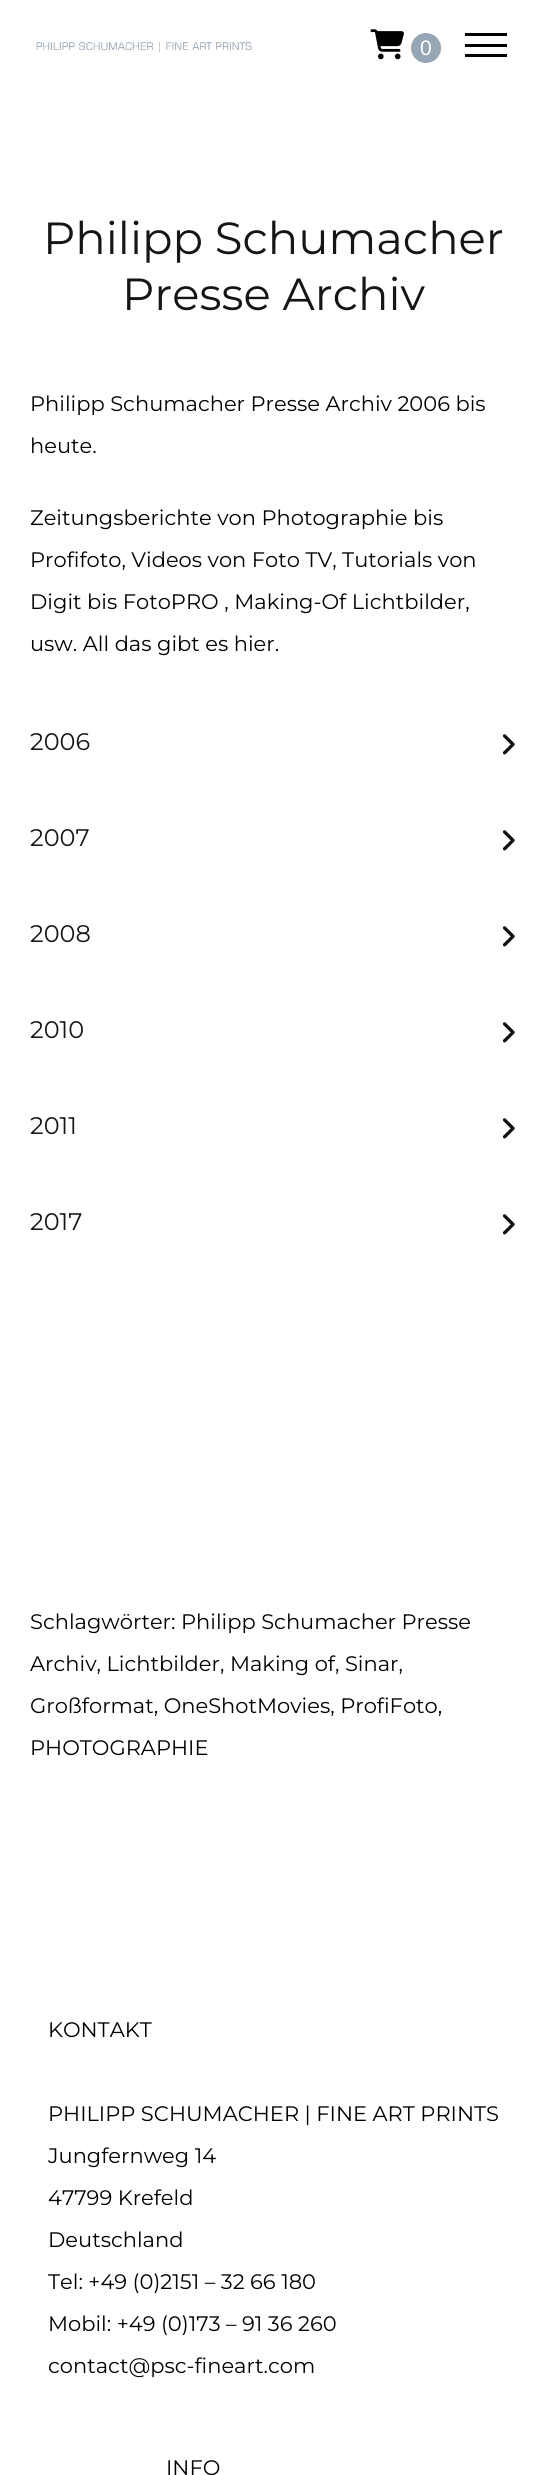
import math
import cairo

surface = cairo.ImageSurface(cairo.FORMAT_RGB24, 546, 2475)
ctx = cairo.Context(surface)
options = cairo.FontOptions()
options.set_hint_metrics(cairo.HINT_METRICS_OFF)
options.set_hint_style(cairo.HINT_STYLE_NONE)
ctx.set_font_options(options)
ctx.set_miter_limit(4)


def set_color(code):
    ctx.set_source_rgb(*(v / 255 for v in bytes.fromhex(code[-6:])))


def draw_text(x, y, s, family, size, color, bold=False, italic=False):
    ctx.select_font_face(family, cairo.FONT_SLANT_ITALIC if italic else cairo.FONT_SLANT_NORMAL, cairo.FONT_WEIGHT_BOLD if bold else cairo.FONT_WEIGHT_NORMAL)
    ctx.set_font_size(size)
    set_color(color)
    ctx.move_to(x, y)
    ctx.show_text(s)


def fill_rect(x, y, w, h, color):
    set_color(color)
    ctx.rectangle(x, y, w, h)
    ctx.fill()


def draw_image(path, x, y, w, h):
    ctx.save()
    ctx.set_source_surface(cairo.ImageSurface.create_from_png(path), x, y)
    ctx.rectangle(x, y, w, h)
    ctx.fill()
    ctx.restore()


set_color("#ffffff")
ctx.paint()
draw_image("assets/img1.png", 36, 41, 216, 12)
draw_image("assets/img2.png", 370, 29, 34, 31)
set_color("#96a6b4")
ctx.arc(426, 48, 15, 0, 2 * math.pi)
ctx.fill()
draw_text(420, 55, "0", "Liberation Sans", 21, "#ffffff")
fill_rect(465, 44, 42, 3, "#000000")
fill_rect(465, 33, 42, 3, "#000000")
fill_rect(465, 54, 42, 3, "#000000")
draw_text(43, 254, "Philipp Schumacher", "Montserrat Thin", 45, "#151515")
draw_text(122, 310, "Presse Archiv", "Montserrat Thin", 45, "#151515")
draw_text(30, 411, "Philipp Schumacher Presse Archiv 2006 bis", "Montserrat Thin", 21, "#000000")
draw_text(30, 453, "heute.", "Montserrat Thin", 21, "#000000")
draw_text(30, 525, "Zeitungsberichte von Photographie bis", "Montserrat Thin", 21, "#000000")
draw_text(30, 567, "Profifoto, Videos von Foto TV, Tutorials von", "Montserrat Thin", 21, "#000000")
draw_text(30, 609, "Digit bis FotoPRO , Making-Of Lichtbilder,", "Montserrat Thin", 21, "#000000")
draw_text(30, 651, "usw. All das gibt es hier.", "Montserrat Thin", 21, "#000000")
draw_text(30, 750, "2006", "Montserrat Thin", 24, "#151515")
draw_image("assets/img3.png", 502, 734, 13, 21)
draw_text(30, 846, "2007", "Montserrat Thin", 24, "#151515")
draw_image("assets/img3.png", 502, 830, 13, 21)
draw_text(30, 942, "2008", "Montserrat Thin", 24, "#151515")
draw_image("assets/img3.png", 502, 926, 13, 21)
draw_text(30, 1038, "2010", "Montserrat Thin", 24, "#151515")
draw_image("assets/img3.png", 502, 1022, 13, 21)
draw_text(30, 1134, "2011", "Montserrat Thin", 24, "#151515")
draw_image("assets/img3.png", 502, 1118, 13, 21)
draw_text(30, 1230, "2017", "Montserrat Thin", 24, "#151515")
draw_image("assets/img3.png", 502, 1214, 13, 21)
draw_text(30, 1629, "Schlagwörter: Philipp Schumacher Presse", "Montserrat Thin", 21, "#000000")
draw_text(30, 1671, "Archiv, Lichtbilder, Making of, Sinar,", "Montserrat Thin", 21, "#000000")
draw_text(30, 1713, "Großformat, OneShotMovies, ProfiFoto,", "Montserrat Thin", 21, "#000000")
draw_text(30, 1755, "PHOTOGRAPHIE", "Montserrat Thin", 21, "#000000")
draw_text(48, 2037, "KONTAKT", "Montserrat Thin", 21, "#000000")
draw_text(48, 2121, "PHILIPP SCHUMACHER | FINE ART PRINTS", "Montserrat Thin", 21, "#000000")
draw_text(48, 2163, "Jungfernweg 14", "Montserrat Thin", 21, "#000000")
draw_text(48, 2205, "47799 Krefeld", "Montserrat Thin", 21, "#000000")
draw_text(48, 2247, "Deutschland", "Montserrat Thin", 21, "#000000")
draw_text(48, 2289, "Tel: +49 (0)2151 – 32 66 180", "Montserrat Thin", 21, "#000000")
draw_text(48, 2331, "Mobil: +49 (0)173 – 91 36 260", "Montserrat Thin", 21, "#000000")
draw_text(48, 2373, "contact@psc-fineart.com", "Montserrat Thin", 21, "#000000")
draw_text(166, 2475, "INFO", "Montserrat Thin", 21, "#000000")
surface.write_to_png("output.png")
